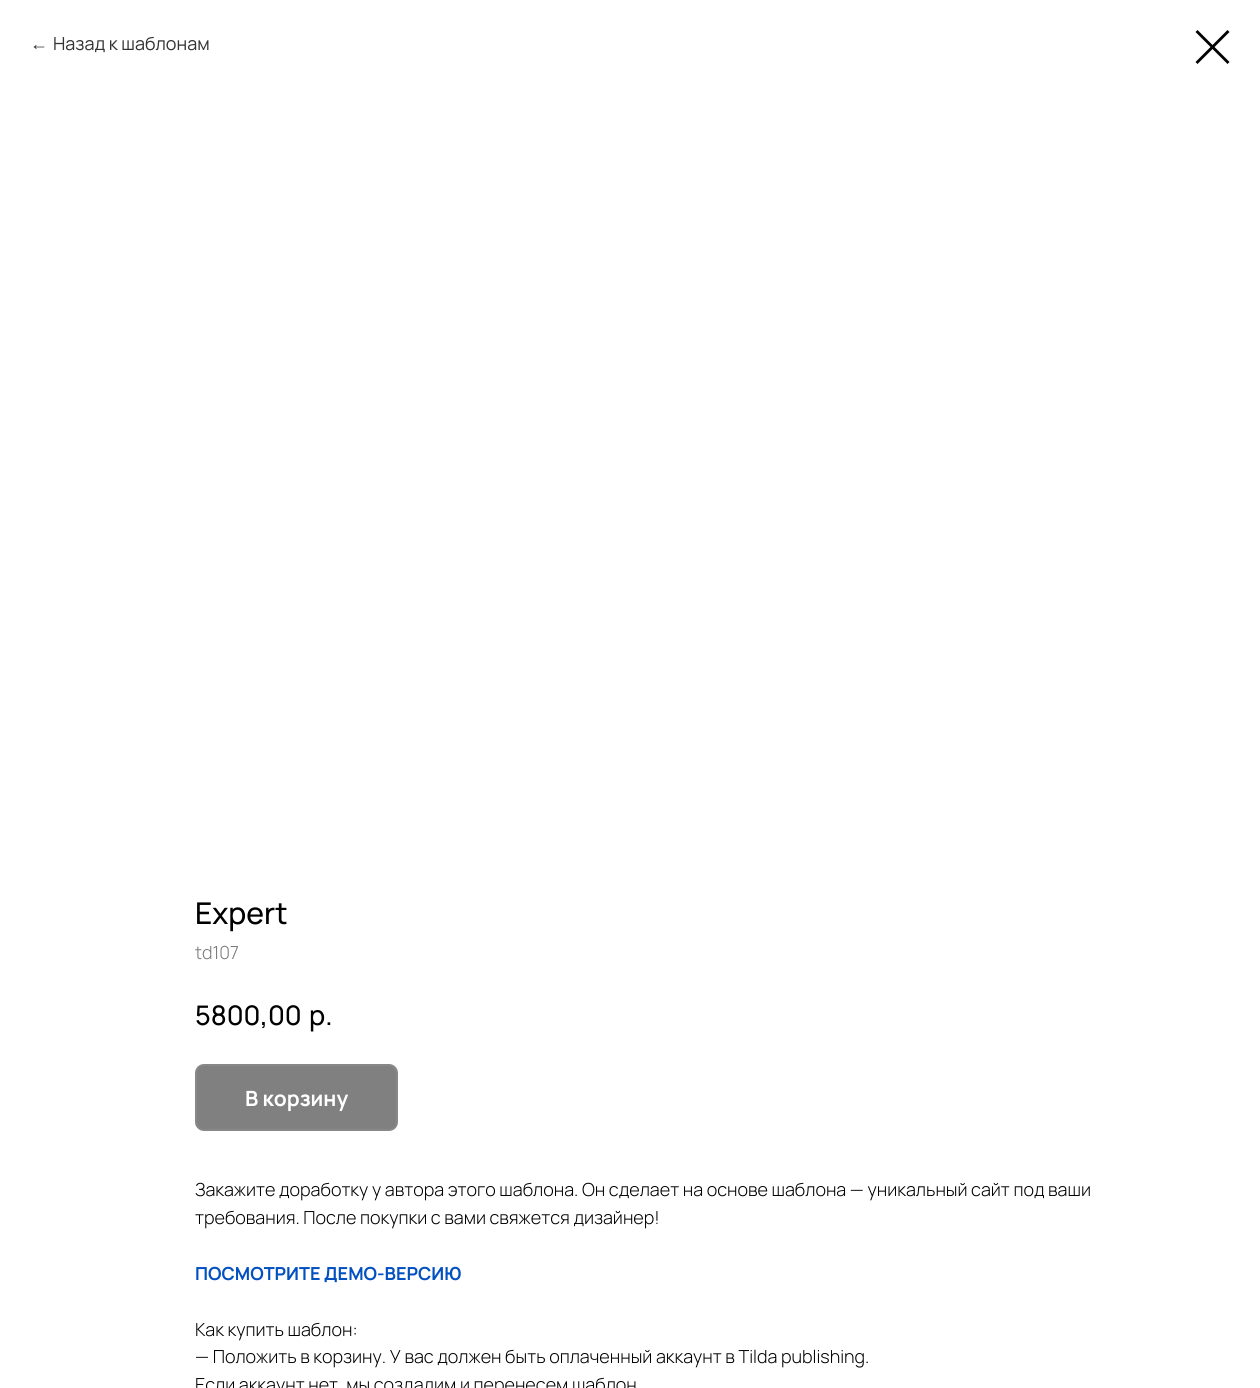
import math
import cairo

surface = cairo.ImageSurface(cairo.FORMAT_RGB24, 1260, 1388)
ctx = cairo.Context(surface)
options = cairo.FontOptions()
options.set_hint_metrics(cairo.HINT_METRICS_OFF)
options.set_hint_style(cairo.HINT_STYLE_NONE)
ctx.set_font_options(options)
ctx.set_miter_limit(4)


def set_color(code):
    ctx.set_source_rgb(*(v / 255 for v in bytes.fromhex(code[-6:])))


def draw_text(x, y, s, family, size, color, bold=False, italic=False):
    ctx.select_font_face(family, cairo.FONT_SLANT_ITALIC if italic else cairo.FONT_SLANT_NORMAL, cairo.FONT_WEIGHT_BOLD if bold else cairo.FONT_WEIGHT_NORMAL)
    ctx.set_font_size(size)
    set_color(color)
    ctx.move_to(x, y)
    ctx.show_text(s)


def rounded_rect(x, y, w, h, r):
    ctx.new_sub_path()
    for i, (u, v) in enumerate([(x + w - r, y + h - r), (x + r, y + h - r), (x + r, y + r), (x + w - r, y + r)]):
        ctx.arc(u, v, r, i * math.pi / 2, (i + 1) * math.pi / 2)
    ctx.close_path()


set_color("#ffffff")
ctx.paint()
draw_text(30, 50, "←", "Liberation Sans", 18, "#333333")
draw_text(53, 50, "Назад к шаблонам", "Manrope", 18, "#333333")
set_color("#000000")
ctx.set_fill_rule(cairo.FILL_RULE_EVEN_ODD)
ctx.new_path()
ctx.move_to(1195.5, 32)
ctx.line_to(1197.5, 30)
ctx.line_to(1229.5, 62)
ctx.line_to(1227.5, 64)
ctx.close_path()
ctx.fill()
ctx.new_path()
ctx.move_to(1227.5, 30)
ctx.line_to(1229.5, 32)
ctx.line_to(1197.5, 64)
ctx.line_to(1195.5, 62)
ctx.close_path()
ctx.fill()
draw_text(195, 924, "Expert", "Manrope Medium", 30, "#000000")
draw_text(195, 959, "td107", "Manrope Light", 18, "#777777")
draw_text(195, 1025, "5800,00", "Manrope Medium", 27, "#000000")
draw_text(309, 1025, "р.", "Manrope Medium", 27, "#000000")
set_color("#808080")
rounded_rect(196, 1065, 201, 65, 8)
ctx.fill_preserve()
set_color("#888888")
ctx.stroke()
draw_text(245, 1106, "В корзину", "Manrope", 21, "#ffffff", bold=True)
draw_text(195, 1196, "Закажите доработку у автора этого шаблона. Он сделает на основе шаблона — уникальный сайт под ваши", "Manrope Light", 18, "#000000")
draw_text(195, 1224, "требования. После покупки с вами свяжется дизайнер!", "Manrope Light", 18, "#000000")
draw_text(195, 1280, "ПОСМОТРИТЕ ДЕМО-ВЕРСИЮ", "Manrope", 18, "#0351c1", bold=True)
draw_text(195, 1336, "Как купить шаблон:", "Manrope Light", 18, "#000000")
draw_text(195, 1363, "— Положить в корзину. У вас должен быть оплаченный аккаунт в Tilda publishing.", "Manrope Light", 18, "#000000")
draw_text(195, 1391, "Если аккаунт нет, мы создадим и перенесем шаблон", "Manrope Light", 18, "#000000")
surface.write_to_png("output.png")
